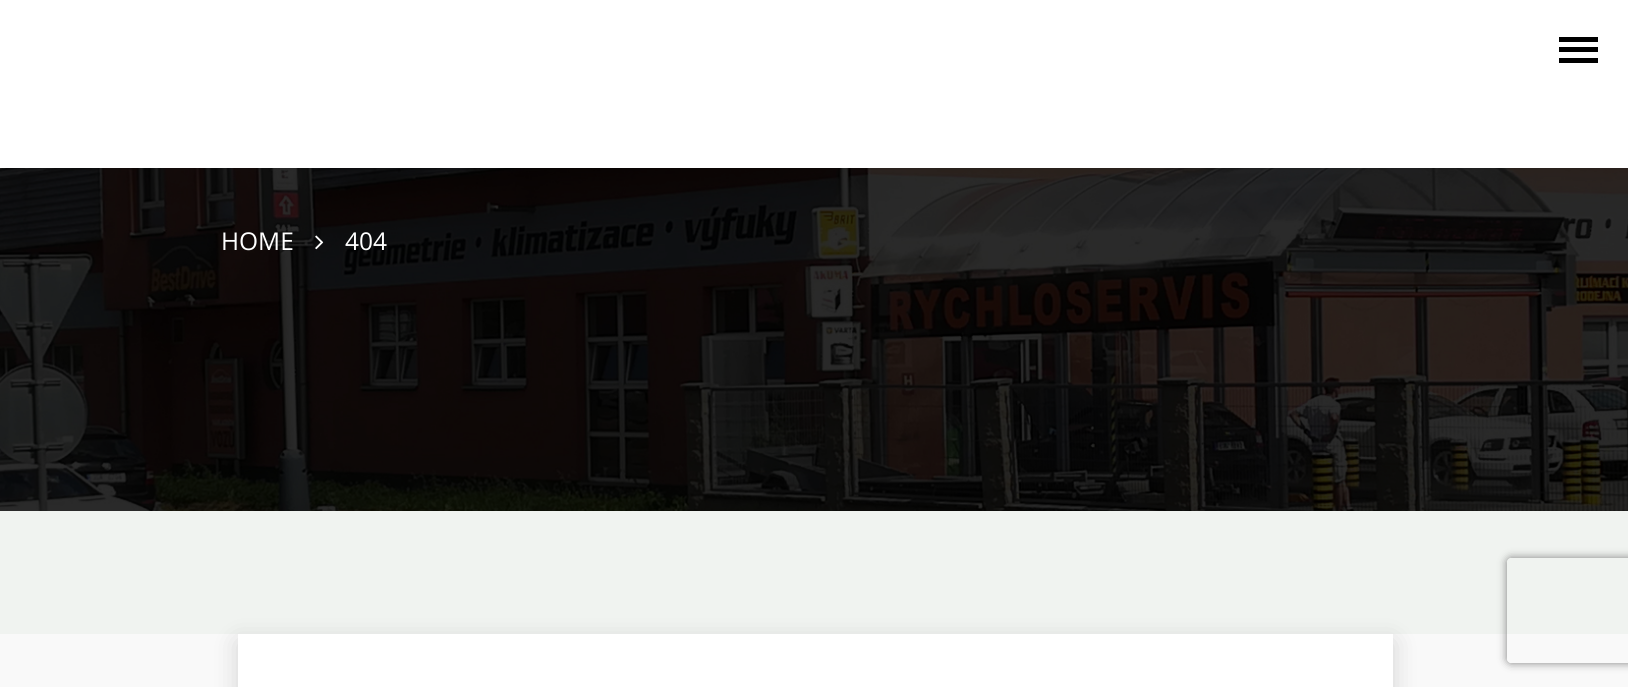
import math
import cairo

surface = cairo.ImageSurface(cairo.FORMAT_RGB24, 1628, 687)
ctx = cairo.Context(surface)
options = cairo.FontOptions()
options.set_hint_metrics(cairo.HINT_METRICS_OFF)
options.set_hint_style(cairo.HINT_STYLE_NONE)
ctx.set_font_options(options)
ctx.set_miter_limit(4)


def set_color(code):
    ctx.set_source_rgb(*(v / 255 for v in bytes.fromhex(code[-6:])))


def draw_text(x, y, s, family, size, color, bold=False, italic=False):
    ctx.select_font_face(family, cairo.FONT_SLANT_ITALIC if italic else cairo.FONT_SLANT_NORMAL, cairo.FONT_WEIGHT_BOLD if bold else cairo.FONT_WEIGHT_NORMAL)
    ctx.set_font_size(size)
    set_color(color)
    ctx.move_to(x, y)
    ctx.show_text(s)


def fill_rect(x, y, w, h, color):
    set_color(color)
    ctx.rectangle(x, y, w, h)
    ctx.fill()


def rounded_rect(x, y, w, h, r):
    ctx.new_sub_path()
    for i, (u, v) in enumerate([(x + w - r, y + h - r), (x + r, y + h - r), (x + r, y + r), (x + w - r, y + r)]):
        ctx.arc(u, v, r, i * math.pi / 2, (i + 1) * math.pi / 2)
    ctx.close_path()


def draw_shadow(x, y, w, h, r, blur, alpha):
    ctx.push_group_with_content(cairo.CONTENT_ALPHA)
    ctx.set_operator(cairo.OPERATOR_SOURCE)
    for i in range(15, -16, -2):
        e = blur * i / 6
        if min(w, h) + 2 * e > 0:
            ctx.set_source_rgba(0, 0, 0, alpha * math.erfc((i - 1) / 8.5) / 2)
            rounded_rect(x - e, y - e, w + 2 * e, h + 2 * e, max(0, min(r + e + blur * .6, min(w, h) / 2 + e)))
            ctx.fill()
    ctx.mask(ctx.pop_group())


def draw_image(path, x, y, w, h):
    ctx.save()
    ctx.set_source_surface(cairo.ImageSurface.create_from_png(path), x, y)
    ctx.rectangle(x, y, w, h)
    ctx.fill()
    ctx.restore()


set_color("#f0f3f0")
ctx.paint()
fill_rect(0, 0, 1628, 168, "#ffffff")
fill_rect(1559, 37, 39, 5, "#000000")
fill_rect(1559, 47, 39, 5, "#000000")
fill_rect(1559, 58, 39, 5, "#000000")
draw_image("assets/img1.png", 0, 168, 1628, 343)
draw_text(221, 250, "HOME", "Open Sans", 24.5, "#ffffff")
draw_image("assets/img2.png", 315, 235, 9, 15)
draw_text(345, 250, "404", "Open Sans", 24.5, "#ffffff")
fill_rect(0, 634, 1628, 53, "#f9f9f9")
set_color("#000000")
draw_shadow(238, 642, 1155, 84, 0, 13, 0.15)
fill_rect(238, 634, 1155, 53, "#ffffff")
ctx.save()
ctx.set_fill_rule(cairo.FILL_RULE_EVEN_ODD)
ctx.new_path()
ctx.move_to(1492, 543)
ctx.line_to(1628, 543)
ctx.line_to(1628, 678)
ctx.line_to(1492, 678)
ctx.close_path()
ctx.move_to(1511, 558)
ctx.line_to(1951, 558)
ctx.curve_to(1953, 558, 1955, 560, 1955, 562)
ctx.line_to(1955, 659)
ctx.curve_to(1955, 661, 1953, 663, 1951, 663)
ctx.line_to(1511, 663)
ctx.curve_to(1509, 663, 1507, 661, 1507, 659)
ctx.line_to(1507, 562)
ctx.curve_to(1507, 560, 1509, 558, 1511, 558)
ctx.close_path()
ctx.clip()
set_color("#808080")
draw_shadow(1507, 558, 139, 105, 4, 4.5, 1)
ctx.restore()
surface.write_to_png("output.png")
